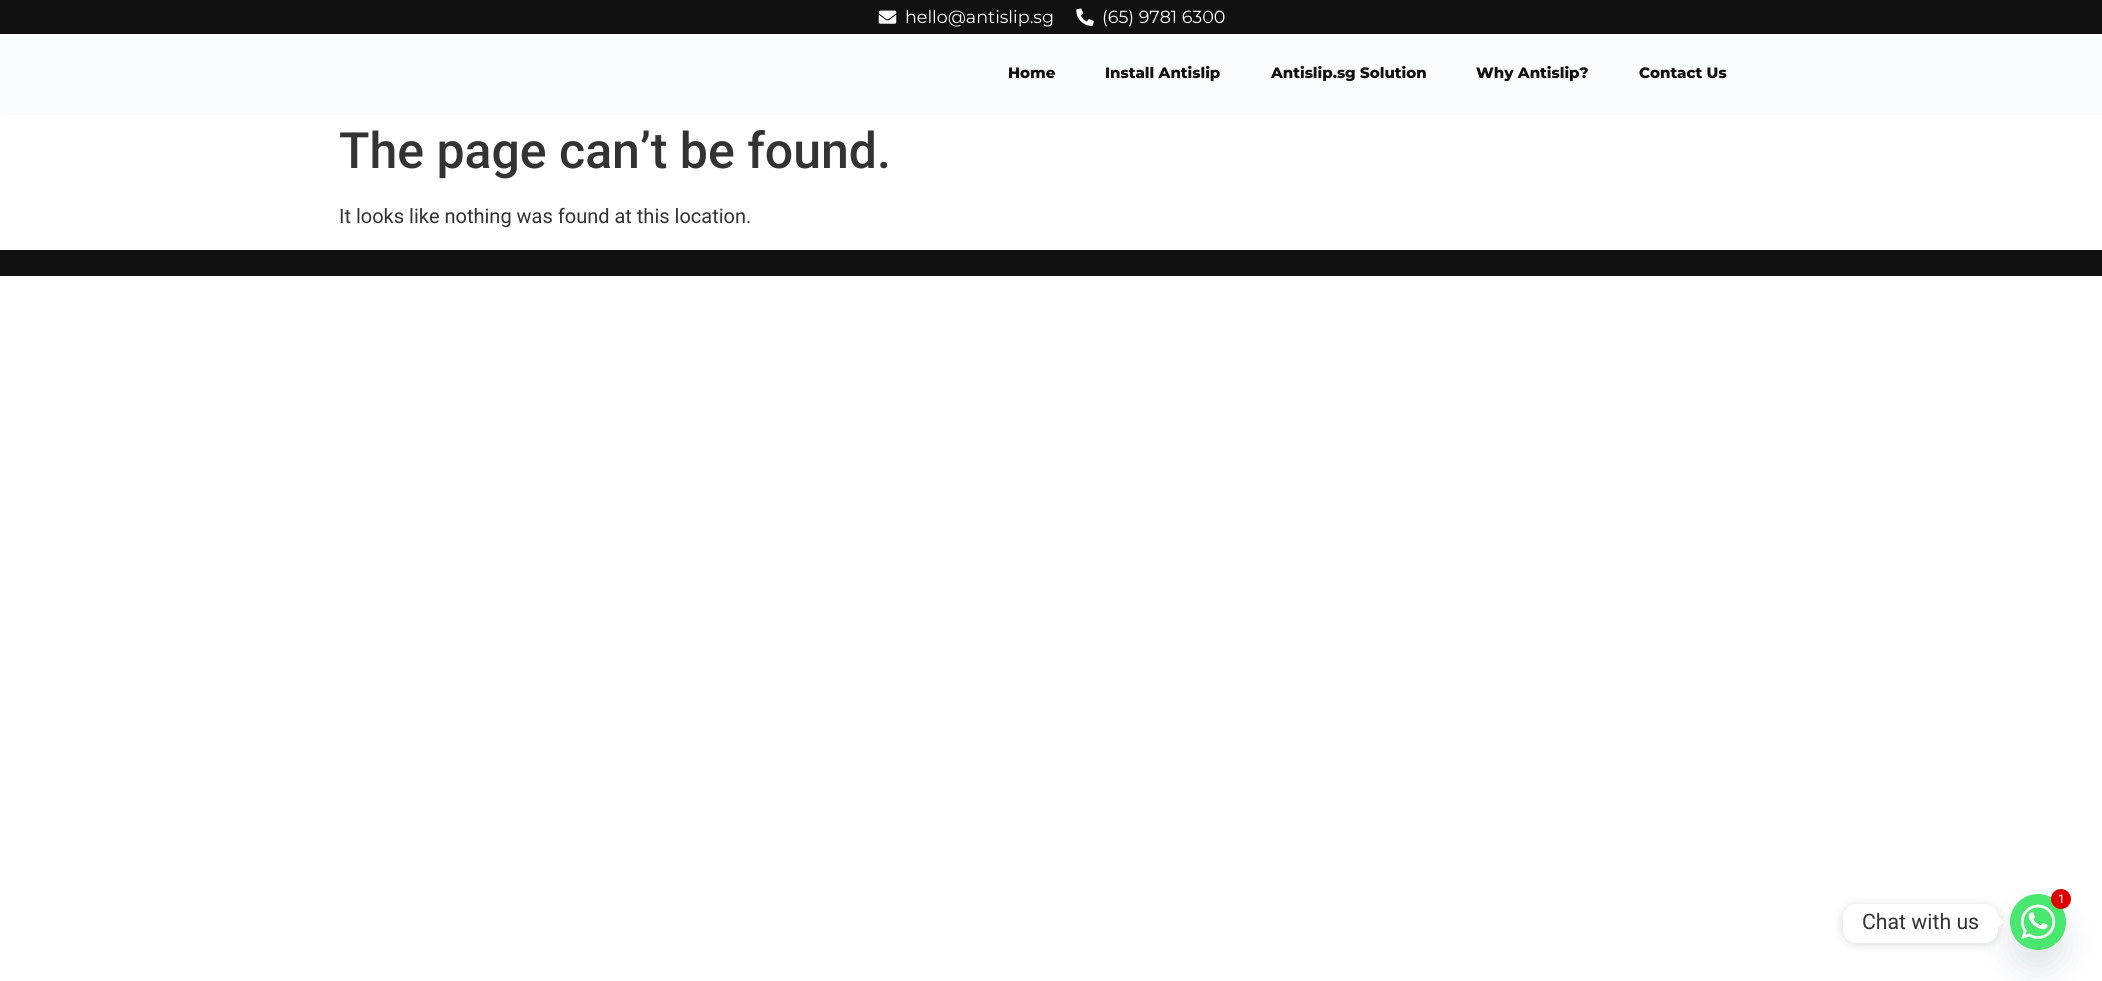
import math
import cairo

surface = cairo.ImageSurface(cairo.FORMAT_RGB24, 2102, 981)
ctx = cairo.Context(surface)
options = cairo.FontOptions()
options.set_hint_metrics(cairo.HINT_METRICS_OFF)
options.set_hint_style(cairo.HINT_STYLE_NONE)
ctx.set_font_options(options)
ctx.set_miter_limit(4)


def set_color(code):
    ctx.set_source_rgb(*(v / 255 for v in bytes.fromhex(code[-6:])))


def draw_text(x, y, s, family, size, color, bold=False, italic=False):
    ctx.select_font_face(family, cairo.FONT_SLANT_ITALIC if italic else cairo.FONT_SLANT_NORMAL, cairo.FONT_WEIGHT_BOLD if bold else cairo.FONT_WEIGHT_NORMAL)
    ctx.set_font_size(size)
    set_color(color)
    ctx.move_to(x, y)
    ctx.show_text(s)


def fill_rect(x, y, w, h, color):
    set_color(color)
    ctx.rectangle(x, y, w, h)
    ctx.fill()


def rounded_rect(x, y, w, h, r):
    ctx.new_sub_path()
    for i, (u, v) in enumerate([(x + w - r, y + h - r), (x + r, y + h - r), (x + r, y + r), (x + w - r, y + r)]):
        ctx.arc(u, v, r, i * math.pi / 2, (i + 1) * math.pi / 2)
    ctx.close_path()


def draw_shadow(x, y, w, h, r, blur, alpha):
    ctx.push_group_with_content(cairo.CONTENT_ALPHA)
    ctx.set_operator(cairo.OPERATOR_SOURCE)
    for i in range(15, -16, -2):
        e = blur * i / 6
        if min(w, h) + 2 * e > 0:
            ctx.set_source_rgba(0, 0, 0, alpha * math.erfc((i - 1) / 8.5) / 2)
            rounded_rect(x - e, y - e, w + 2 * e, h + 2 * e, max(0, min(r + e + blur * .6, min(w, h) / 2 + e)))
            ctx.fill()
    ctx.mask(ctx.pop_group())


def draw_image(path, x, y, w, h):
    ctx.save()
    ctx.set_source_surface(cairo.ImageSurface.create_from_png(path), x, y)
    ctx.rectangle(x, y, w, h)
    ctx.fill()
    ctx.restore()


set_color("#ffffff")
ctx.paint()
set_color("#000000")
draw_shadow(0, 34, 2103, 79, 0, 3, 0.05)
fill_rect(0, 0, 2102, 34, "#111111")
draw_image("assets/img1.png", 878, 10, 19, 14)
draw_text(905, 23, "hello@antislip.sg", "Montserrat", 17.5, "#ffffff")
draw_image("assets/img2.png", 1076, 8, 18, 18)
draw_text(1102, 23, "(65) 9781 6300", "Montserrat", 17.5, "#ffffff")
fill_rect(0, 34, 2102, 79, "#fbfcfd")
draw_text(1008, 78, "Home", "Montserrat ExtraBold", 15, "#111111")
draw_text(1105, 78, "Install Antislip", "Montserrat ExtraBold", 15, "#111111")
draw_text(1271, 78, "Antislip.sg Solution", "Montserrat ExtraBold", 15, "#111111")
draw_text(1476, 78, "Why Antislip?", "Montserrat ExtraBold", 15, "#111111")
draw_text(1639, 78, "Contact Us", "Montserrat ExtraBold", 15, "#111111")
draw_text(339, 168, "The page can’t be found.", "Roboto Medium", 50, "#333333")
draw_text(339, 223, "It looks like nothing was found at this location.", "Roboto", 20, "#333333")
fill_rect(0, 250, 2102, 26, "#111111")
set_color("#49687e")
draw_shadow(2010, 914, 56, 56, 28, 15, 0.16)
draw_image("assets/img3.png", 2010, 894, 56, 56)
set_color("#dd0000")
ctx.arc(2061, 899, 10, 0, 2 * math.pi)
ctx.fill()
draw_text(2058, 903, "1", "Roboto", 12, "#ffffff")
set_color("#000000")
draw_shadow(1843, 905, 155, 39, 13, 5, 0.15)
set_color("#ffffff")
rounded_rect(1843, 904, 155, 39, 13)
ctx.fill()
draw_text(1862, 929, "Chat with us", "Roboto", 21.25, "#333333")
set_color("#ffffff")
ctx.new_path()
ctx.move_to(1997.5, 928)
ctx.line_to(1997.5, 915.5)
ctx.line_to(2004, 922)
ctx.close_path()
ctx.fill()
surface.write_to_png("output.png")
